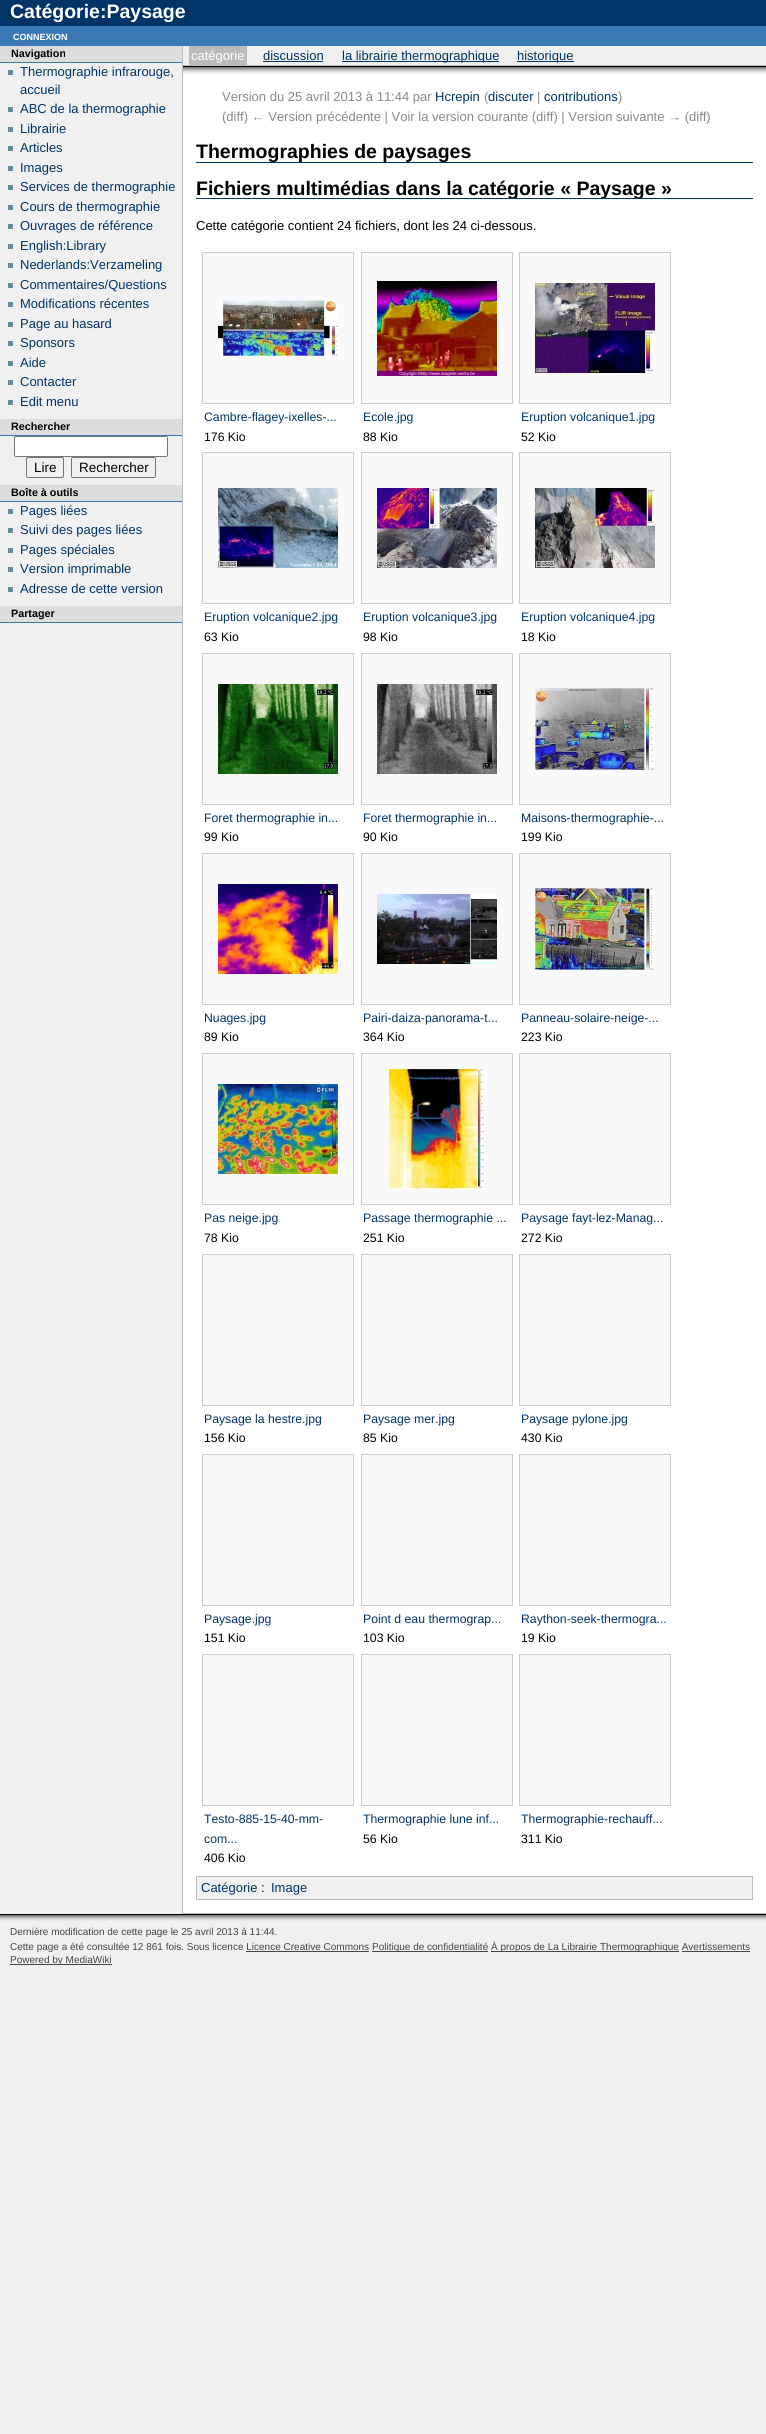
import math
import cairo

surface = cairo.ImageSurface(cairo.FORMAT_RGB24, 766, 2434)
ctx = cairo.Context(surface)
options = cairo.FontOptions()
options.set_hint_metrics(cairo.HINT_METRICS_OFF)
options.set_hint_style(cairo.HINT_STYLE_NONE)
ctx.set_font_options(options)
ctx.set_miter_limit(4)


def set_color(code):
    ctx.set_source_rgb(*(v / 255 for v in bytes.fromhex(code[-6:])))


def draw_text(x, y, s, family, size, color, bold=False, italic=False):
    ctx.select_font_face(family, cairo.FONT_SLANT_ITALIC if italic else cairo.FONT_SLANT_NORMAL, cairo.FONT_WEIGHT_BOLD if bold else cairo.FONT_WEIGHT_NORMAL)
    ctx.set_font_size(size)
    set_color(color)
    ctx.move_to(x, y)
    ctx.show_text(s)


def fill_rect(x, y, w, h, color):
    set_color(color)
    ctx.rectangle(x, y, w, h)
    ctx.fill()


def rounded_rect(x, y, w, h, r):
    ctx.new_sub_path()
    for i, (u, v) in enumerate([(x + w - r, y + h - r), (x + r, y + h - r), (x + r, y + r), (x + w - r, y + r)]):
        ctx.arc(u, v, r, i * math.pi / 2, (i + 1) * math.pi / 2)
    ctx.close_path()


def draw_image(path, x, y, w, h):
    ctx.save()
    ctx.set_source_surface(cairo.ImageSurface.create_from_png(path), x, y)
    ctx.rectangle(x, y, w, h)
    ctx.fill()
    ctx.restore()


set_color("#f0f0f0")
ctx.paint()
fill_rect(0, 0, 766, 26, "#003366")
draw_text(10, 18, "Catégorie:Paysage", "Liberation Sans", 19.5, "#ffffff", bold=True)
fill_rect(0, 26, 766, 20, "#3c78b5")
draw_text(13, 40, "CONNEXION", "Liberation Sans", 9, "#ffffff", bold=True)
fill_rect(182, 46, 1, 19, "#bbbbbb")
fill_rect(0, 46, 182, 16, "#dddddd")
fill_rect(0, 62, 182, 1, "#3c78b5")
draw_text(11, 57, "Navigation", "Liberation Sans", 10.75, "#000000", bold=True)
fill_rect(8, 70, 5, 5, "#638c9c")
draw_text(20, 76, "Thermographie infrarouge,", "Liberation Sans", 13, "#003366")
draw_text(20, 94, "accueil", "Liberation Sans", 13, "#003366")
fill_rect(8, 107, 5, 5, "#638c9c")
draw_text(20, 113, "ABC de la thermographie", "Liberation Sans", 13, "#003366")
fill_rect(8, 127, 5, 5, "#638c9c")
draw_text(20, 133, "Librairie", "Liberation Sans", 13, "#003366")
fill_rect(8, 146, 5, 5, "#638c9c")
draw_text(20, 152, "Articles", "Liberation Sans", 13, "#003366")
fill_rect(8, 166, 5, 5, "#638c9c")
draw_text(20, 172, "Images", "Liberation Sans", 13, "#003366")
fill_rect(8, 185, 5, 5, "#638c9c")
draw_text(20, 191, "Services de thermographie", "Liberation Sans", 13, "#003366")
fill_rect(8, 205, 5, 5, "#638c9c")
draw_text(20, 211, "Cours de thermographie", "Liberation Sans", 13, "#003366")
fill_rect(8, 224, 5, 5, "#638c9c")
draw_text(20, 230, "Ouvrages de référence", "Liberation Sans", 13, "#003366")
fill_rect(8, 244, 5, 5, "#638c9c")
draw_text(20, 250, "English:Library", "Liberation Sans", 13, "#003366")
fill_rect(8, 263, 5, 5, "#638c9c")
draw_text(20, 269, "Nederlands:Verzameling", "Liberation Sans", 13, "#003366")
fill_rect(8, 283, 5, 5, "#638c9c")
draw_text(20, 289, "Commentaires/Questions", "Liberation Sans", 13, "#003366")
fill_rect(8, 302, 5, 5, "#638c9c")
draw_text(20, 308, "Modifications récentes", "Liberation Sans", 13, "#003366")
fill_rect(8, 322, 5, 5, "#638c9c")
draw_text(20, 328, "Page au hasard", "Liberation Sans", 13, "#003366")
fill_rect(8, 341, 5, 5, "#638c9c")
draw_text(20, 347, "Sponsors", "Liberation Sans", 13, "#003366")
fill_rect(8, 361, 5, 5, "#638c9c")
draw_text(20, 367, "Aide", "Liberation Sans", 13, "#003366")
fill_rect(8, 380, 5, 5, "#638c9c")
draw_text(20, 386, "Contacter", "Liberation Sans", 13, "#003366")
fill_rect(8, 400, 5, 5, "#638c9c")
draw_text(20, 406, "Edit menu", "Liberation Sans", 13, "#003366")
fill_rect(0, 419, 182, 16, "#dddddd")
fill_rect(0, 435, 182, 1, "#3c78b5")
draw_text(11, 430, "Rechercher", "Liberation Sans", 10.75, "#000000", bold=True)
set_color("#ffffff")
rounded_rect(14.5, 436.5, 153, 20, 1.5)
ctx.fill_preserve()
set_color("#767676")
ctx.set_line_width(1)
ctx.stroke()
rounded_rect(26.5, 457.5, 37, 20, 1.5)
ctx.stroke()
draw_text(34, 472, "Lire", "Liberation Sans", 13.5, "#000000")
rounded_rect(71.5, 457.5, 84, 20, 1.5)
set_color("#767676")
ctx.stroke()
draw_text(79, 472, "Rechercher", "Liberation Sans", 13.5, "#000000")
fill_rect(0, 485, 182, 16, "#dddddd")
fill_rect(0, 501, 182, 1, "#3c78b5")
draw_text(11, 496, "Boîte à outils", "Liberation Sans", 10.75, "#000000", bold=True)
fill_rect(8, 509, 5, 5, "#638c9c")
draw_text(20, 515, "Pages liées", "Liberation Sans", 13, "#003366")
fill_rect(8, 528, 5, 5, "#638c9c")
draw_text(20, 534, "Suivi des pages liées", "Liberation Sans", 13, "#003366")
fill_rect(8, 548, 5, 5, "#638c9c")
draw_text(20, 554, "Pages spéciales", "Liberation Sans", 13, "#003366")
fill_rect(8, 567, 5, 5, "#638c9c")
draw_text(20, 573, "Version imprimable", "Liberation Sans", 13, "#003366")
fill_rect(8, 587, 5, 5, "#638c9c")
draw_text(20, 593, "Adresse de cette version", "Liberation Sans", 13, "#003366")
fill_rect(0, 606, 182, 16, "#dddddd")
fill_rect(0, 622, 182, 1, "#3c78b5")
draw_text(11, 617, "Partager", "Liberation Sans", 10.75, "#000000", bold=True)
fill_rect(189, 46, 58, 19, "#bbbbbb")
draw_text(191, 60, "catégorie", "Liberation Sans", 13, "#ffffff")
draw_text(263, 60, "discussion", "Liberation Sans", 13, "#003366")
fill_rect(263, 61, 60, 1, "#003366")
fill_rect(342, 61, 157, 1, "#003366")
draw_text(342, 60, "la librairie thermographique", "Liberation Sans", 13, "#003366")
fill_rect(517, 61, 57, 1, "#003366")
draw_text(517, 60, "historique", "Liberation Sans", 13, "#003366")
fill_rect(183, 74, 583, 1839, "#ffffff")
fill_rect(182, 65, 584, 1, "#bbbbbb")
fill_rect(182, 1913, 584, 1, "#bbbbbb")
fill_rect(182, 65, 1, 1849, "#bbbbbb")
draw_image("assets/img1.png", 183, 66, 583, 8)
draw_text(222, 101, "Version du 25 avril 2013 à 11:44 par", "Liberation Sans", 13, "#888888")
draw_text(435, 101, "Hcrepin", "Liberation Sans", 13, "#003366")
draw_text(484, 101, "(", "Liberation Sans", 13, "#888888")
draw_text(488, 101, "discuter", "Liberation Sans", 13, "#003366")
draw_text(537, 101, "|", "Liberation Sans", 13, "#888888")
draw_text(544, 101, "contributions", "Liberation Sans", 13, "#003366")
draw_text(618, 101, ")", "Liberation Sans", 13, "#888888")
draw_text(222, 121, "(diff) ← Version précédente | Voir la version courante (diff) | Version suivante → (diff)", "Liberation Sans", 13, "#888888")
fill_rect(196, 162, 557, 1, "#003366")
ctx.save()
ctx.rectangle(196, 142, 557, 20)
ctx.clip()
draw_text(196, 158, "Thermographies de paysages", "Liberation Sans", 19.5, "#000000", bold=True)
ctx.restore()
fill_rect(196, 198, 557, 1, "#003366")
ctx.save()
ctx.rectangle(196, 179, 557, 19)
ctx.clip()
draw_text(196, 195, "Fichiers multimédias dans la catégorie « Paysage »", "Liberation Sans", 19.5, "#000000", bold=True)
ctx.restore()
draw_text(196, 230, "Cette catégorie contient 24 fichiers, dont les 24 ci-dessous.", "Liberation Sans", 13, "#000000")
set_color("#f9f9f9")
ctx.rectangle(202.5, 252.5, 151, 151)
ctx.fill_preserve()
set_color("#cccccc")
ctx.stroke()
draw_image("assets/img2.png", 218, 300, 120, 56)
draw_text(204, 421, "Cambre-flagey-ixelles-...", "Liberation Sans", 12.25, "#003366")
draw_text(204, 441, "176 Kio", "Liberation Sans", 12.25, "#000000")
set_color("#f9f9f9")
ctx.rectangle(361.5, 252.5, 151, 151)
ctx.fill_preserve()
set_color("#cccccc")
ctx.stroke()
draw_image("assets/img3.png", 377, 281, 120, 95)
draw_text(363, 421, "Ecole.jpg", "Liberation Sans", 12.25, "#003366")
draw_text(363, 441, "88 Kio", "Liberation Sans", 12.25, "#000000")
set_color("#f9f9f9")
ctx.rectangle(519.5, 252.5, 151, 151)
ctx.fill_preserve()
set_color("#cccccc")
ctx.stroke()
draw_image("assets/img4.png", 535, 283, 120, 90)
draw_text(521, 421, "Eruption volcanique1.jpg", "Liberation Sans", 12.25, "#003366")
draw_text(521, 441, "52 Kio", "Liberation Sans", 12.25, "#000000")
set_color("#f9f9f9")
ctx.rectangle(202.5, 452.5, 151, 151)
ctx.fill_preserve()
set_color("#cccccc")
ctx.stroke()
draw_image("assets/img5.png", 218, 488, 120, 80)
draw_text(204, 621, "Eruption volcanique2.jpg", "Liberation Sans", 12.25, "#003366")
draw_text(204, 641, "63 Kio", "Liberation Sans", 12.25, "#000000")
set_color("#f9f9f9")
ctx.rectangle(361.5, 452.5, 151, 151)
ctx.fill_preserve()
set_color("#cccccc")
ctx.stroke()
draw_image("assets/img6.png", 377, 488, 120, 80)
draw_text(363, 621, "Eruption volcanique3.jpg", "Liberation Sans", 12.25, "#003366")
draw_text(363, 641, "98 Kio", "Liberation Sans", 12.25, "#000000")
set_color("#f9f9f9")
ctx.rectangle(519.5, 452.5, 151, 151)
ctx.fill_preserve()
set_color("#cccccc")
ctx.stroke()
draw_image("assets/img7.png", 535, 488, 120, 80)
draw_text(521, 621, "Eruption volcanique4.jpg", "Liberation Sans", 12.25, "#003366")
draw_text(521, 641, "18 Kio", "Liberation Sans", 12.25, "#000000")
set_color("#f9f9f9")
ctx.rectangle(202.5, 653.5, 151, 151)
ctx.fill_preserve()
set_color("#cccccc")
ctx.stroke()
draw_image("assets/img8.png", 218, 684, 120, 90)
draw_text(204, 822, "Foret thermographie in...", "Liberation Sans", 12.25, "#003366")
draw_text(204, 841, "99 Kio", "Liberation Sans", 12.25, "#000000")
set_color("#f9f9f9")
ctx.rectangle(361.5, 653.5, 151, 151)
ctx.fill_preserve()
set_color("#cccccc")
ctx.stroke()
draw_image("assets/img9.png", 377, 684, 120, 90)
draw_text(363, 822, "Foret thermographie in...", "Liberation Sans", 12.25, "#003366")
draw_text(363, 841, "90 Kio", "Liberation Sans", 12.25, "#000000")
set_color("#f9f9f9")
ctx.rectangle(519.5, 653.5, 151, 151)
ctx.fill_preserve()
set_color("#cccccc")
ctx.stroke()
draw_image("assets/img10.png", 535, 688, 120, 82)
draw_text(521, 822, "Maisons-thermographie-...", "Liberation Sans", 12.25, "#003366")
draw_text(521, 841, "199 Kio", "Liberation Sans", 12.25, "#000000")
set_color("#f9f9f9")
ctx.rectangle(202.5, 853.5, 151, 151)
ctx.fill_preserve()
set_color("#cccccc")
ctx.stroke()
draw_image("assets/img11.png", 218, 884, 120, 90)
draw_text(204, 1022, "Nuages.jpg", "Liberation Sans", 12.25, "#003366")
draw_text(204, 1041, "89 Kio", "Liberation Sans", 12.25, "#000000")
set_color("#f9f9f9")
ctx.rectangle(361.5, 853.5, 151, 151)
ctx.fill_preserve()
set_color("#cccccc")
ctx.stroke()
draw_image("assets/img12.png", 377, 894, 120, 70)
draw_text(363, 1022, "Pairi-daiza-panorama-t...", "Liberation Sans", 12.25, "#003366")
draw_text(363, 1041, "364 Kio", "Liberation Sans", 12.25, "#000000")
set_color("#f9f9f9")
ctx.rectangle(519.5, 853.5, 151, 151)
ctx.fill_preserve()
set_color("#cccccc")
ctx.stroke()
draw_image("assets/img13.png", 535, 888, 120, 82)
draw_text(521, 1022, "Panneau-solaire-neige-...", "Liberation Sans", 12.25, "#003366")
draw_text(521, 1041, "223 Kio", "Liberation Sans", 12.25, "#000000")
set_color("#f9f9f9")
ctx.rectangle(202.5, 1053.5, 151, 151)
ctx.fill_preserve()
set_color("#cccccc")
ctx.stroke()
draw_image("assets/img14.png", 218, 1084, 120, 90)
draw_text(204, 1222, "Pas neige.jpg", "Liberation Sans", 12.25, "#003366")
draw_text(204, 1242, "78 Kio", "Liberation Sans", 12.25, "#000000")
set_color("#f9f9f9")
ctx.rectangle(361.5, 1053.5, 151, 151)
ctx.fill_preserve()
set_color("#cccccc")
ctx.stroke()
draw_image("assets/img15.png", 389, 1069, 95, 120)
draw_text(363, 1222, "Passage thermographie ...", "Liberation Sans", 12.25, "#003366")
draw_text(363, 1242, "251 Kio", "Liberation Sans", 12.25, "#000000")
set_color("#f9f9f9")
ctx.rectangle(519.5, 1053.5, 151, 151)
ctx.fill_preserve()
set_color("#cccccc")
ctx.stroke()
draw_text(521, 1222, "Paysage fayt-lez-Manag...", "Liberation Sans", 12.25, "#003366")
draw_text(521, 1242, "272 Kio", "Liberation Sans", 12.25, "#000000")
set_color("#f9f9f9")
ctx.rectangle(202.5, 1254.5, 151, 151)
ctx.fill_preserve()
set_color("#cccccc")
ctx.stroke()
draw_text(204, 1423, "Paysage la hestre.jpg", "Liberation Sans", 12.25, "#003366")
draw_text(204, 1442, "156 Kio", "Liberation Sans", 12.25, "#000000")
set_color("#f9f9f9")
ctx.rectangle(361.5, 1254.5, 151, 151)
ctx.fill_preserve()
set_color("#cccccc")
ctx.stroke()
draw_text(363, 1423, "Paysage mer.jpg", "Liberation Sans", 12.25, "#003366")
draw_text(363, 1442, "85 Kio", "Liberation Sans", 12.25, "#000000")
set_color("#f9f9f9")
ctx.rectangle(519.5, 1254.5, 151, 151)
ctx.fill_preserve()
set_color("#cccccc")
ctx.stroke()
draw_text(521, 1423, "Paysage pylone.jpg", "Liberation Sans", 12.25, "#003366")
draw_text(521, 1442, "430 Kio", "Liberation Sans", 12.25, "#000000")
set_color("#f9f9f9")
ctx.rectangle(202.5, 1454.5, 151, 151)
ctx.fill_preserve()
set_color("#cccccc")
ctx.stroke()
draw_text(204, 1623, "Paysage.jpg", "Liberation Sans", 12.25, "#003366")
draw_text(204, 1642, "151 Kio", "Liberation Sans", 12.25, "#000000")
set_color("#f9f9f9")
ctx.rectangle(361.5, 1454.5, 151, 151)
ctx.fill_preserve()
set_color("#cccccc")
ctx.stroke()
draw_text(363, 1623, "Point d eau thermograp...", "Liberation Sans", 12.25, "#003366")
draw_text(363, 1642, "103 Kio", "Liberation Sans", 12.25, "#000000")
set_color("#f9f9f9")
ctx.rectangle(519.5, 1454.5, 151, 151)
ctx.fill_preserve()
set_color("#cccccc")
ctx.stroke()
draw_text(521, 1623, "Raython-seek-thermogra...", "Liberation Sans", 12.25, "#003366")
draw_text(521, 1642, "19 Kio", "Liberation Sans", 12.25, "#000000")
set_color("#f9f9f9")
ctx.rectangle(202.5, 1654.5, 151, 151)
ctx.fill_preserve()
set_color("#cccccc")
ctx.stroke()
draw_text(204, 1823, "Testo-885-15-40-mm-", "Liberation Sans", 12.25, "#003366")
draw_text(204, 1843, "com...", "Liberation Sans", 12.25, "#003366")
draw_text(204, 1862, "406 Kio", "Liberation Sans", 12.25, "#000000")
set_color("#f9f9f9")
ctx.rectangle(361.5, 1654.5, 151, 151)
ctx.fill_preserve()
set_color("#cccccc")
ctx.stroke()
draw_text(363, 1823, "Thermographie lune inf...", "Liberation Sans", 12.25, "#003366")
draw_text(363, 1843, "56 Kio", "Liberation Sans", 12.25, "#000000")
set_color("#f9f9f9")
ctx.rectangle(519.5, 1654.5, 151, 151)
ctx.fill_preserve()
set_color("#cccccc")
ctx.stroke()
draw_text(521, 1823, "Thermographie-rechauff...", "Liberation Sans", 12.25, "#003366")
draw_text(521, 1843, "311 Kio", "Liberation Sans", 12.25, "#000000")
set_color("#f0f0f0")
ctx.rectangle(196.5, 1876.5, 556, 23)
ctx.fill_preserve()
set_color("#bbbbbb")
ctx.stroke()
draw_text(201, 1892, "Catégorie", "Liberation Sans", 13, "#003366")
draw_text(261, 1892, ":", "Liberation Sans", 13, "#000000")
draw_text(271, 1892, "Image", "Liberation Sans", 13, "#003366")
draw_image("assets/img16.png", 0, 1914, 766, 7)
draw_text(10, 1935, "Dernière modification de cette page le 25 avril 2013 à 11:44.", "Liberation Sans", 10, "#444444")
draw_text(10, 1950, "Cette page a été consultée 12 861 fois. Sous licence Licence Creative Commons", "Liberation Sans", 10, "#444444")
fill_rect(372, 1951, 116, 1, "#444444")
draw_text(372, 1950, "Politique de confidentialité", "Liberation Sans", 10, "#444444")
fill_rect(491, 1951, 188, 1, "#444444")
draw_text(491, 1950, "À propos de La Librairie Thermographique Avertissements", "Liberation Sans", 10, "#444444")
fill_rect(246, 1951, 123, 1, "#444444")
fill_rect(682, 1951, 68, 1, "#444444")
fill_rect(10, 1964, 102, 1, "#444444")
draw_text(10, 1963, "Powered by MediaWiki", "Liberation Sans", 10, "#444444")
surface.write_to_png("output.png")
